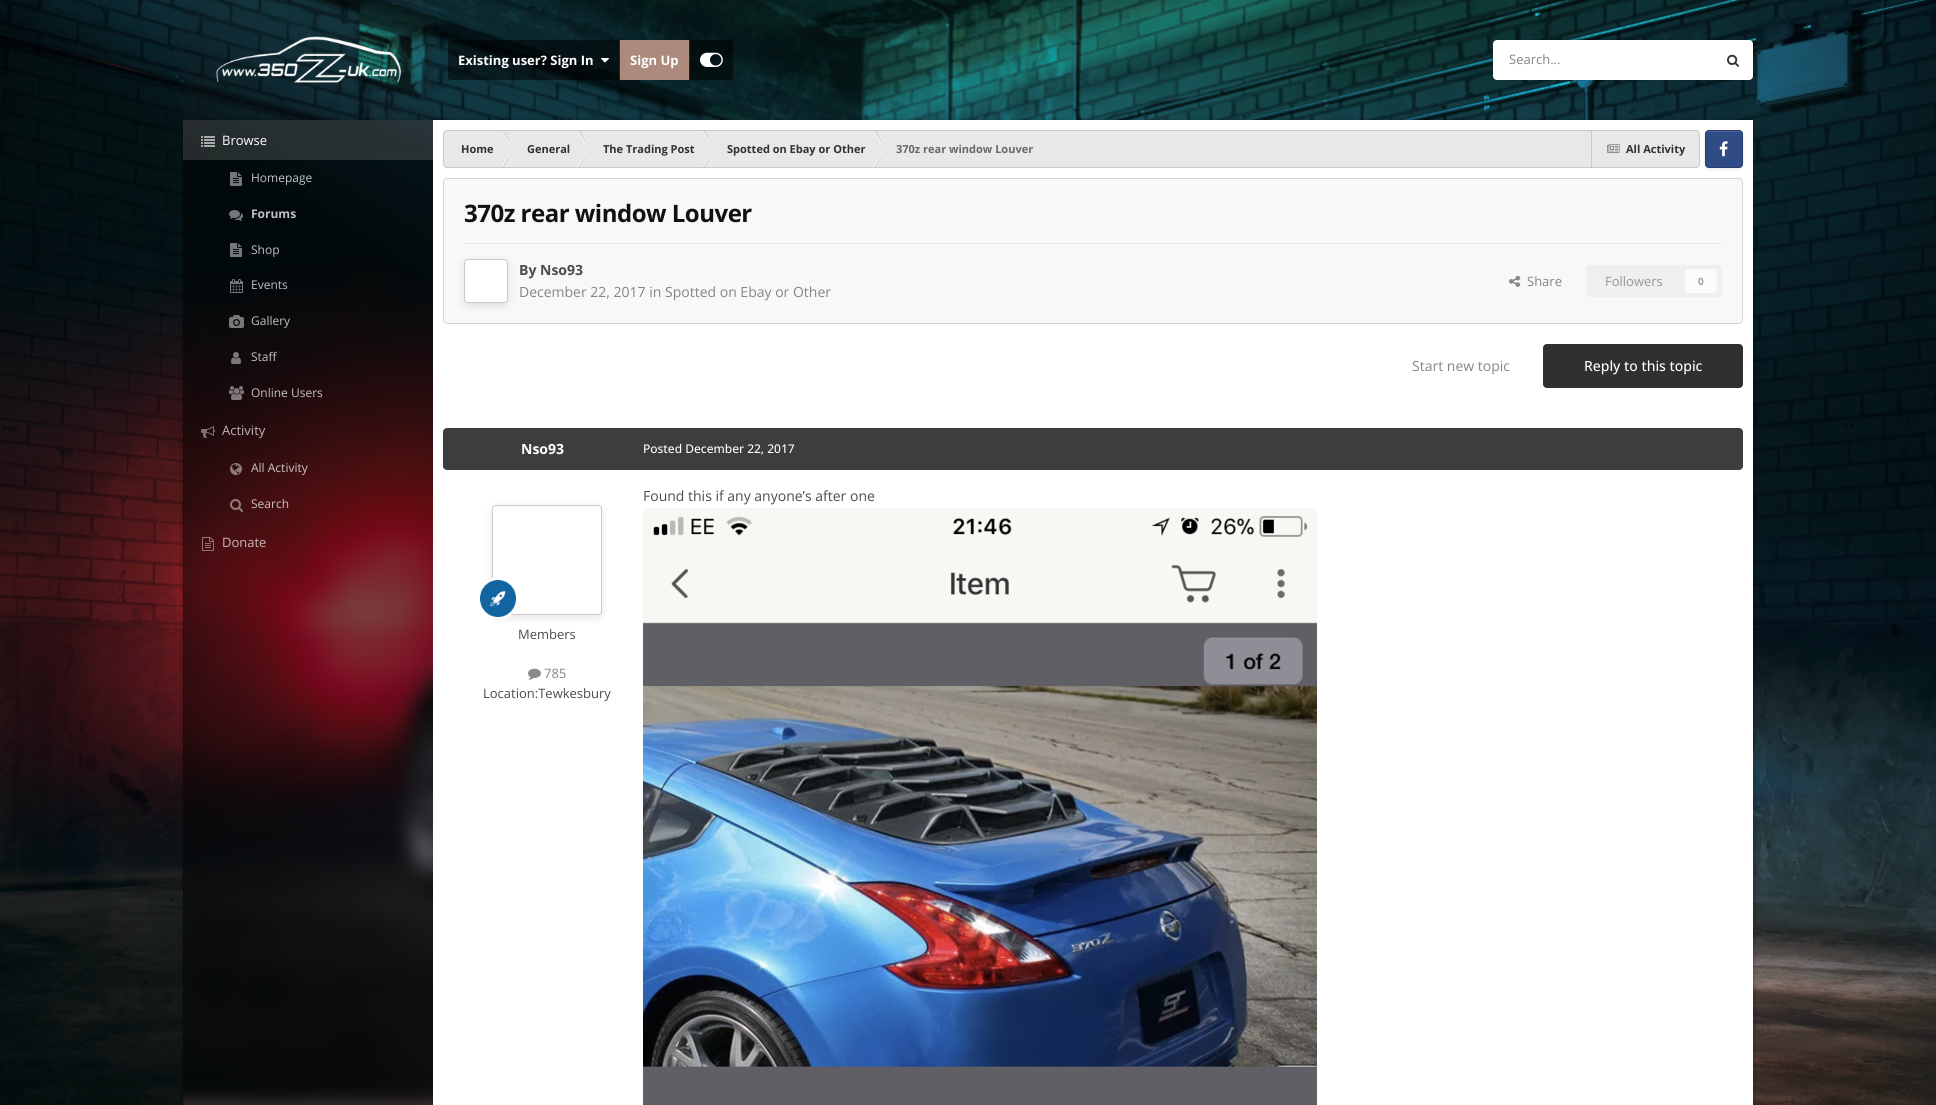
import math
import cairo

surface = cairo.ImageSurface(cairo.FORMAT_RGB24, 1936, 1105)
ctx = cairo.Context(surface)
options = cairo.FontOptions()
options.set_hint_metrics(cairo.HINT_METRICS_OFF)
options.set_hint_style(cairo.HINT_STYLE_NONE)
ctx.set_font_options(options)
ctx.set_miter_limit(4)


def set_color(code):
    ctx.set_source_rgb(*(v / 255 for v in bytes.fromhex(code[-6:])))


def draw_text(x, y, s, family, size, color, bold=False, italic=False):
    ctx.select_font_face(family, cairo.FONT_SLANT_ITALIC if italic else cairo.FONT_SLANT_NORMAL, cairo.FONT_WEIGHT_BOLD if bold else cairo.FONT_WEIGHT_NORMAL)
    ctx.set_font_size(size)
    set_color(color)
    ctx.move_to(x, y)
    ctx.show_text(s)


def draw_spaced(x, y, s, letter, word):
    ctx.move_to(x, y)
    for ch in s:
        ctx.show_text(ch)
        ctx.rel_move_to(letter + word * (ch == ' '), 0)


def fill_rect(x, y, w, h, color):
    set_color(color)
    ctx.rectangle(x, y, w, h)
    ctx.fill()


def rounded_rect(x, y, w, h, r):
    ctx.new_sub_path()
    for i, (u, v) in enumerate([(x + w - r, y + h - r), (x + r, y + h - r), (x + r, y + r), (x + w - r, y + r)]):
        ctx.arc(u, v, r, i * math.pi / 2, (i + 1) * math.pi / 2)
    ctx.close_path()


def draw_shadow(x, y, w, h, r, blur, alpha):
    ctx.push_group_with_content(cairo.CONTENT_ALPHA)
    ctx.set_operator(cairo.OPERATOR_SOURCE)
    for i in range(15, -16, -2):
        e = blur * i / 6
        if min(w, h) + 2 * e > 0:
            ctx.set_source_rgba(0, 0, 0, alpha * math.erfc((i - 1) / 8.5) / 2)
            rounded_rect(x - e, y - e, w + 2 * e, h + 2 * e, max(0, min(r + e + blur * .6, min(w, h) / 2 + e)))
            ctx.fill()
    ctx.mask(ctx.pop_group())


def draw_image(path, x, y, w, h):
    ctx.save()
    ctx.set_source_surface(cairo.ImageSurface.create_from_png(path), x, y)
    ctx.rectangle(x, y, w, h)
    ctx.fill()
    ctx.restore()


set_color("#ffffff")
ctx.paint()
draw_image("assets/img1.png", 0, 0, 1936, 1105)
ctx.save()
ctx.rectangle(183, 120, 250, 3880)
ctx.clip()
set_color("#a99491")
draw_shadow(163, 100, 290, 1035, 0, 10, 1)
ctx.restore()
ctx.set_source_rgba(0.118, 0.118, 0.118, 0.15)
ctx.rectangle(183, 0, 250, 120)
ctx.fill()
draw_image("assets/img2.png", 216, 36, 185, 47)
ctx.set_source_rgba(0, 0, 0, 0.5)
rounded_rect(448, 40, 285, 40, 3)
ctx.fill()
draw_text(458, 65, "Existing user? Sign In", "Open Sans", 13, "#ffffff", bold=True)
draw_image("assets/img3.png", 601, 58, 8, 5)
ctx.set_source_rgba(1, 1, 1, 0.1)
ctx.rectangle(619, 40, 1, 40)
ctx.fill()
fill_rect(620, 40, 69, 40, "#ac8b7c")
draw_text(630, 65, "Sign Up", "Open Sans", 13, "#ffffff", bold=True)
ctx.set_source_rgba(1, 1, 1, 0.1)
ctx.rectangle(689, 40, 1, 40)
ctx.fill()
draw_image("assets/img4.png", 700, 52, 23, 15)
rounded_rect(1492.5, 39.5, 261, 41, 4.5)
ctx.set_source_rgba(0, 0, 0, 0.1)
ctx.set_line_width(1)
ctx.stroke()
set_color("#ffffff")
rounded_rect(1493, 40, 260, 40, 4)
ctx.fill()
draw_text(1509, 64, "Search...", "Open Sans", 13, "#858585")
draw_image("assets/img5.png", 1727, 54, 12, 13)
draw_image("assets/img6.png", 183, 120, 250, 985)
ctx.save()
ctx.set_fill_rule(cairo.FILL_RULE_EVEN_ODD)
ctx.new_path()
ctx.move_to(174, 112)
ctx.line_to(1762, 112)
ctx.line_to(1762, 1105)
ctx.line_to(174, 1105)
ctx.close_path()
ctx.move_to(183, 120)
ctx.line_to(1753, 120)
ctx.line_to(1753, 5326)
ctx.line_to(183, 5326)
ctx.close_path()
ctx.clip()
set_color("#000000")
draw_shadow(183, 121, 1570, 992, 0, 2.5, 0.35)
ctx.restore()
ctx.set_source_rgba(0, 0, 0, 0.5)
ctx.rectangle(183, 120, 250, 985)
ctx.fill()
ctx.rectangle(183.5, 120.5, 1569, 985)
ctx.set_source_rgba(0, 0, 0, 0.15)
ctx.stroke()
ctx.set_source_rgba(1, 1, 1, 0.14)
ctx.rectangle(183, 120, 250, 40)
ctx.fill()
draw_image("assets/img7.png", 201, 136, 14, 11)
draw_text(222, 145, "Browse", "Open Sans", 13, "#ffffff")
draw_image("assets/img8.png", 230, 172, 12, 14)
draw_text(251, 182, "Homepage", "Open Sans", 12, "#c0c2c3")
draw_image("assets/img9.png", 229, 210, 14, 11)
draw_text(251, 218, "Forums", "Open Sans", 12, "#c0c2c3", bold=True)
draw_image("assets/img10.png", 230, 243, 12, 14)
draw_text(251, 254, "Shop", "Open Sans", 12, "#c0c2c3")
draw_image("assets/img11.png", 230, 279, 13, 14)
draw_text(251, 289, "Events", "Open Sans", 12, "#c0c2c3")
draw_image("assets/img12.png", 229, 315, 15, 13)
draw_text(251, 325, "Gallery", "Open Sans", 12, "#c0c2c3")
draw_image("assets/img13.png", 231, 352, 10, 12)
draw_text(251, 361, "Staff", "Open Sans", 12, "#c0c2c3")
draw_image("assets/img14.png", 229, 386, 15, 14)
draw_text(251, 397, "Online Users", "Open Sans", 12, "#c7c2c2")
draw_image("assets/img15.png", 201, 426, 14, 12)
draw_text(222, 435, "Activity", "Open Sans", 13, "#bdb6b6")
draw_image("assets/img16.png", 230, 463, 12, 12)
draw_text(251, 472, "All Activity", "Open Sans", 12, "#cec3c3")
draw_image("assets/img17.png", 230, 499, 13, 13)
draw_text(251, 508, "Search", "Open Sans", 12, "#cec3c3")
draw_image("assets/img18.png", 202, 537, 12, 14)
draw_text(222, 547, "Donate", "Open Sans", 13, "#cab7b8")
fill_rect(433, 120, 1320, 985, "#ffffff")
set_color("#e8e8e8")
rounded_rect(443, 130, 1257, 38, 4)
ctx.fill()
ctx.save()
ctx.rectangle(443, 130, 66, 38)
ctx.clip()
set_color("#ffffff")
ctx.new_path()
ctx.move_to(501, 130)
ctx.line_to(502, 130)
ctx.line_to(513, 149)
ctx.line_to(512, 149)
ctx.close_path()
ctx.fill()
ctx.set_source_rgba(0.294, 0.294, 0.294, 0.2)
ctx.new_path()
ctx.move_to(502, 130)
ctx.line_to(503, 130)
ctx.line_to(514, 149)
ctx.line_to(513, 149)
ctx.close_path()
ctx.fill()
set_color("#ffffff")
ctx.new_path()
ctx.move_to(501, 168)
ctx.line_to(502, 168)
ctx.line_to(513, 149)
ctx.line_to(512, 149)
ctx.close_path()
ctx.fill()
ctx.set_source_rgba(0.294, 0.294, 0.294, 0.2)
ctx.new_path()
ctx.move_to(502, 168)
ctx.line_to(503, 168)
ctx.line_to(514, 149)
ctx.line_to(513, 149)
ctx.close_path()
ctx.fill()
ctx.restore()
ctx.save()
ctx.rectangle(509, 130, 76, 38)
ctx.clip()
set_color("#ffffff")
ctx.new_path()
ctx.move_to(577, 130)
ctx.line_to(578, 130)
ctx.line_to(589, 149)
ctx.line_to(588, 149)
ctx.close_path()
ctx.fill()
ctx.set_source_rgba(0.294, 0.294, 0.294, 0.2)
ctx.new_path()
ctx.move_to(578, 130)
ctx.line_to(579, 130)
ctx.line_to(590, 149)
ctx.line_to(589, 149)
ctx.close_path()
ctx.fill()
set_color("#ffffff")
ctx.new_path()
ctx.move_to(577, 168)
ctx.line_to(578, 168)
ctx.line_to(589, 149)
ctx.line_to(588, 149)
ctx.close_path()
ctx.fill()
ctx.set_source_rgba(0.294, 0.294, 0.294, 0.2)
ctx.new_path()
ctx.move_to(578, 168)
ctx.line_to(579, 168)
ctx.line_to(590, 149)
ctx.line_to(589, 149)
ctx.close_path()
ctx.fill()
ctx.restore()
ctx.save()
ctx.rectangle(585, 130, 124, 38)
ctx.clip()
set_color("#ffffff")
ctx.new_path()
ctx.move_to(702, 130)
ctx.line_to(703, 130)
ctx.line_to(714, 149)
ctx.line_to(713, 149)
ctx.close_path()
ctx.fill()
ctx.set_source_rgba(0.294, 0.294, 0.294, 0.2)
ctx.new_path()
ctx.move_to(703, 130)
ctx.line_to(704, 130)
ctx.line_to(715, 149)
ctx.line_to(714, 149)
ctx.close_path()
ctx.fill()
set_color("#ffffff")
ctx.new_path()
ctx.move_to(702, 168)
ctx.line_to(703, 168)
ctx.line_to(714, 149)
ctx.line_to(713, 149)
ctx.close_path()
ctx.fill()
ctx.set_source_rgba(0.294, 0.294, 0.294, 0.2)
ctx.new_path()
ctx.move_to(703, 168)
ctx.line_to(704, 168)
ctx.line_to(715, 149)
ctx.line_to(714, 149)
ctx.close_path()
ctx.fill()
ctx.restore()
ctx.save()
ctx.rectangle(709, 130, 172, 38)
ctx.clip()
set_color("#ffffff")
ctx.new_path()
ctx.move_to(873, 130)
ctx.line_to(874, 130)
ctx.line_to(885, 149)
ctx.line_to(884, 149)
ctx.close_path()
ctx.fill()
ctx.set_source_rgba(0.294, 0.294, 0.294, 0.2)
ctx.new_path()
ctx.move_to(874, 130)
ctx.line_to(875, 130)
ctx.line_to(886, 149)
ctx.line_to(885, 149)
ctx.close_path()
ctx.fill()
set_color("#ffffff")
ctx.new_path()
ctx.move_to(873, 168)
ctx.line_to(874, 168)
ctx.line_to(885, 149)
ctx.line_to(884, 149)
ctx.close_path()
ctx.fill()
ctx.set_source_rgba(0.294, 0.294, 0.294, 0.2)
ctx.new_path()
ctx.move_to(874, 168)
ctx.line_to(875, 168)
ctx.line_to(886, 149)
ctx.line_to(885, 149)
ctx.close_path()
ctx.fill()
ctx.restore()
fill_rect(1591, 130, 1, 38, "#c9c9c9")
draw_image("assets/img19.png", 1607, 144, 13, 9)
rounded_rect(443.5, 130.5, 1256, 37, 3.5)
ctx.set_source_rgba(0.294, 0.294, 0.294, 0.2)
ctx.stroke()
draw_text(461, 153, "Home", "Open Sans", 11, "#313131", bold=True)
draw_text(527, 153, "General", "Open Sans", 11, "#313131", bold=True)
draw_text(603, 153, "The Trading Post", "Open Sans", 11, "#313131", bold=True)
draw_text(727, 153, "Spotted on Ebay or Other", "Open Sans", 11, "#313131", bold=True)
draw_text(896, 153, "370z rear window Louver", "Open Sans", 11, "#686868", bold=True)
draw_text(1626, 153, "All Activity", "Open Sans", 11, "#313131", bold=True)
set_color("#000000")
draw_shadow(1705, 131, 38, 38, 4, 1.5, 0.1)
set_color("#304c87")
rounded_rect(1705, 130, 38, 38, 4)
ctx.fill()
set_color("#4f6799")
ctx.new_path()
ctx.move_to(1709, 132)
ctx.curve_to(1707, 132, 1706, 133, 1706, 135)
ctx.curve_to(1706, 130, 1710, 131, 1714, 131)
ctx.line_to(1734, 131)
ctx.curve_to(1738, 131, 1742, 130, 1742, 135)
ctx.curve_to(1742, 133, 1741, 132, 1739, 132)
ctx.close_path()
ctx.fill()
draw_image("assets/img20.png", 1719, 141, 9, 16)
rounded_rect(1705.5, 130.5, 37, 37, 3.5)
ctx.set_source_rgba(0, 0, 0, 0.2)
ctx.stroke()
set_color("#f8f8f8")
rounded_rect(443.5, 178.5, 1299, 145, 3.5)
ctx.fill_preserve()
set_color("#d5d5d5")
ctx.stroke()
ctx.set_font_size(24)
set_color("#111111")
draw_spaced(464, 222, "370z rear window Louver", -0.5, 0)
fill_rect(464, 243, 1258, 1, "#eaeaea")
set_color("#ffffff")
rounded_rect(464, 259, 44, 44, 4)
ctx.fill()
ctx.save()
ctx.set_fill_rule(cairo.FILL_RULE_EVEN_ODD)
ctx.new_path()
ctx.move_to(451, 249)
ctx.line_to(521, 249)
ctx.line_to(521, 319)
ctx.line_to(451, 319)
ctx.close_path()
ctx.move_to(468, 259)
ctx.line_to(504, 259)
ctx.curve_to(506, 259, 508, 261, 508, 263)
ctx.line_to(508, 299)
ctx.curve_to(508, 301, 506, 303, 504, 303)
ctx.line_to(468, 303)
ctx.curve_to(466, 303, 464, 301, 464, 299)
ctx.line_to(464, 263)
ctx.curve_to(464, 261, 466, 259, 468, 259)
ctx.close_path()
ctx.clip()
set_color("#000000")
draw_shadow(464, 262, 44, 44, 4, 4, 0.1)
ctx.restore()
rounded_rect(464.5, 259.5, 43, 43, 3.5)
ctx.set_source_rgba(0.294, 0.294, 0.294, 0.3)
ctx.stroke()
draw_text(519, 275, "By Nso93", "Open Sans", 14, "#4b4b4b", bold=True)
draw_text(519, 297, "December 22, 2017 in Spotted on Ebay or Other", "Open Sans", 14, "#858585")
draw_image("assets/img21.png", 1509, 275, 12, 12)
draw_text(1527, 286, "Share", "Open Sans", 13, "#858585")
set_color("#efefef")
rounded_rect(1586, 265, 136, 32, 4)
ctx.fill()
draw_text(1605, 286, "Followers", "Open Sans", 13, "#969696")
set_color("#fcfcfc")
rounded_rect(1685, 269, 32, 24, 4)
ctx.fill()
draw_text(1698, 285, "0", "Open Sans", 10, "#a2a2a2", bold=True)
draw_text(1412, 371, "Start new topic", "Open Sans", 14, "#858585")
set_color("#303030")
rounded_rect(1543, 344, 200, 44, 4)
ctx.fill()
draw_text(1584, 371, "Reply to this topic", "Open Sans Medium", 14, "#ffffff")
set_color("#3d3d3d")
rounded_rect(443, 428, 1300, 42, 4)
ctx.fill()
ctx.set_source_rgba(0.294, 0.294, 0.294, 0.1)
ctx.rectangle(445, 469, 1296, 1)
ctx.fill()
draw_text(521, 454, "Nso93", "Open Sans", 14, "#ffffff", bold=True)
ctx.save()
ctx.set_fill_rule(cairo.FILL_RULE_EVEN_ODD)
ctx.new_path()
ctx.move_to(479, 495)
ctx.line_to(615, 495)
ctx.line_to(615, 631)
ctx.line_to(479, 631)
ctx.close_path()
ctx.move_to(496, 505)
ctx.line_to(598, 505)
ctx.curve_to(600, 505, 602, 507, 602, 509)
ctx.line_to(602, 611)
ctx.curve_to(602, 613, 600, 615, 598, 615)
ctx.line_to(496, 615)
ctx.curve_to(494, 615, 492, 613, 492, 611)
ctx.line_to(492, 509)
ctx.curve_to(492, 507, 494, 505, 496, 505)
ctx.close_path()
ctx.clip()
set_color("#000000")
draw_shadow(492, 508, 110, 110, 4, 4, 0.1)
ctx.restore()
rounded_rect(492.5, 505.5, 109, 109, 3.5)
ctx.set_source_rgba(0.294, 0.294, 0.294, 0.3)
ctx.stroke()
draw_image("assets/img22.png", 480, 578, 36, 41)
draw_text(518, 639, "Members", "Open Sans", 13, "#4b4b4b")
draw_image("assets/img23.png", 528, 668, 13, 12)
draw_text(544, 678, "785", "Open Sans", 13, "#858585")
draw_text(483, 698, "Location:Tewkesbury", "Open Sans", 13, "#4b4b4b")
draw_text(643, 453, "Posted December 22, 2017", "Open Sans Medium", 12, "#ffffff")
draw_text(643, 501, "Found this if any anyone’s after one", "Open Sans", 14, "#4b4b4b")
draw_image("assets/img24.png", 643, 508, 674, 597)
surface.write_to_png("output.png")
